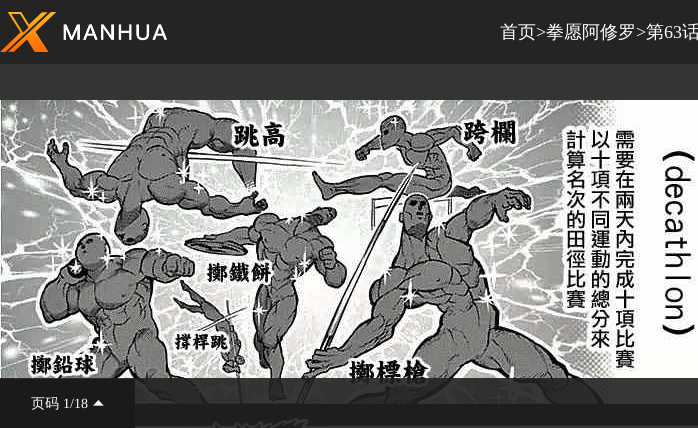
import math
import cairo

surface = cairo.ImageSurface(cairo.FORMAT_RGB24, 698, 428)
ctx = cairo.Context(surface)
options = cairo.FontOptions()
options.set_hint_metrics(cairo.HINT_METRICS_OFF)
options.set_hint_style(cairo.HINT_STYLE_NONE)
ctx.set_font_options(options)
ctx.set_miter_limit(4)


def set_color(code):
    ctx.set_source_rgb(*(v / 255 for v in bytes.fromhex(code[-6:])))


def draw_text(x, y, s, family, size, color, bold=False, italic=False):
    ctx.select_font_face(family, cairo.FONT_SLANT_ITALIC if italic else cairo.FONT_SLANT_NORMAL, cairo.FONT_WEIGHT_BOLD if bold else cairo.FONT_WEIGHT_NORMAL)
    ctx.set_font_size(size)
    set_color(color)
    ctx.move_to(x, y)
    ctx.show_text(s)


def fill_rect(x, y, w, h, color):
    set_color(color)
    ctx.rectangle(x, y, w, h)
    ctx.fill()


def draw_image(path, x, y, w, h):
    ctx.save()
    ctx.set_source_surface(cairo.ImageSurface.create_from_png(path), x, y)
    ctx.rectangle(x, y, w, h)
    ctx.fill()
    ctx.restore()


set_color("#343434")
ctx.paint()
fill_rect(0, 0, 698, 64, "#242424")
draw_image("assets/img1.png", 0, 12, 167, 40)
draw_text(500, 38, "首页", "WenQuanYi Zen Hei Medium", 18, "#ffffff")
draw_text(536, 38, ">", "Liberation Serif", 18, "#ffffff")
draw_text(546, 38, "拳愿阿修罗", "WenQuanYi Zen Hei Medium", 18, "#ffffff")
draw_text(636, 38, ">", "Liberation Serif", 18, "#ffffff")
draw_text(646, 38, "第", "WenQuanYi Zen Hei Medium", 18, "#ffffff")
draw_text(664, 38, "63", "Liberation Serif", 18, "#ffffff")
draw_text(682, 38, "话", "WenQuanYi Zen Hei Medium", 18, "#ffffff")
draw_image("assets/img2.png", 0, 100, 698, 328)
ctx.set_source_rgba(0.133, 0.133, 0.133, 0.9)
ctx.rectangle(0, 378, 698, 50)
ctx.fill()
fill_rect(0, 379, 135, 49, "#1a1a1a")
draw_text(31, 408, "页码", "WenQuanYi Zen Hei Medium", 14, "#ffffff")
draw_text(63, 408, "1/18", "Liberation Serif", 14, "#ffffff")
draw_image("assets/img3.png", 93, 400, 11, 6)
surface.write_to_png("output.png")
